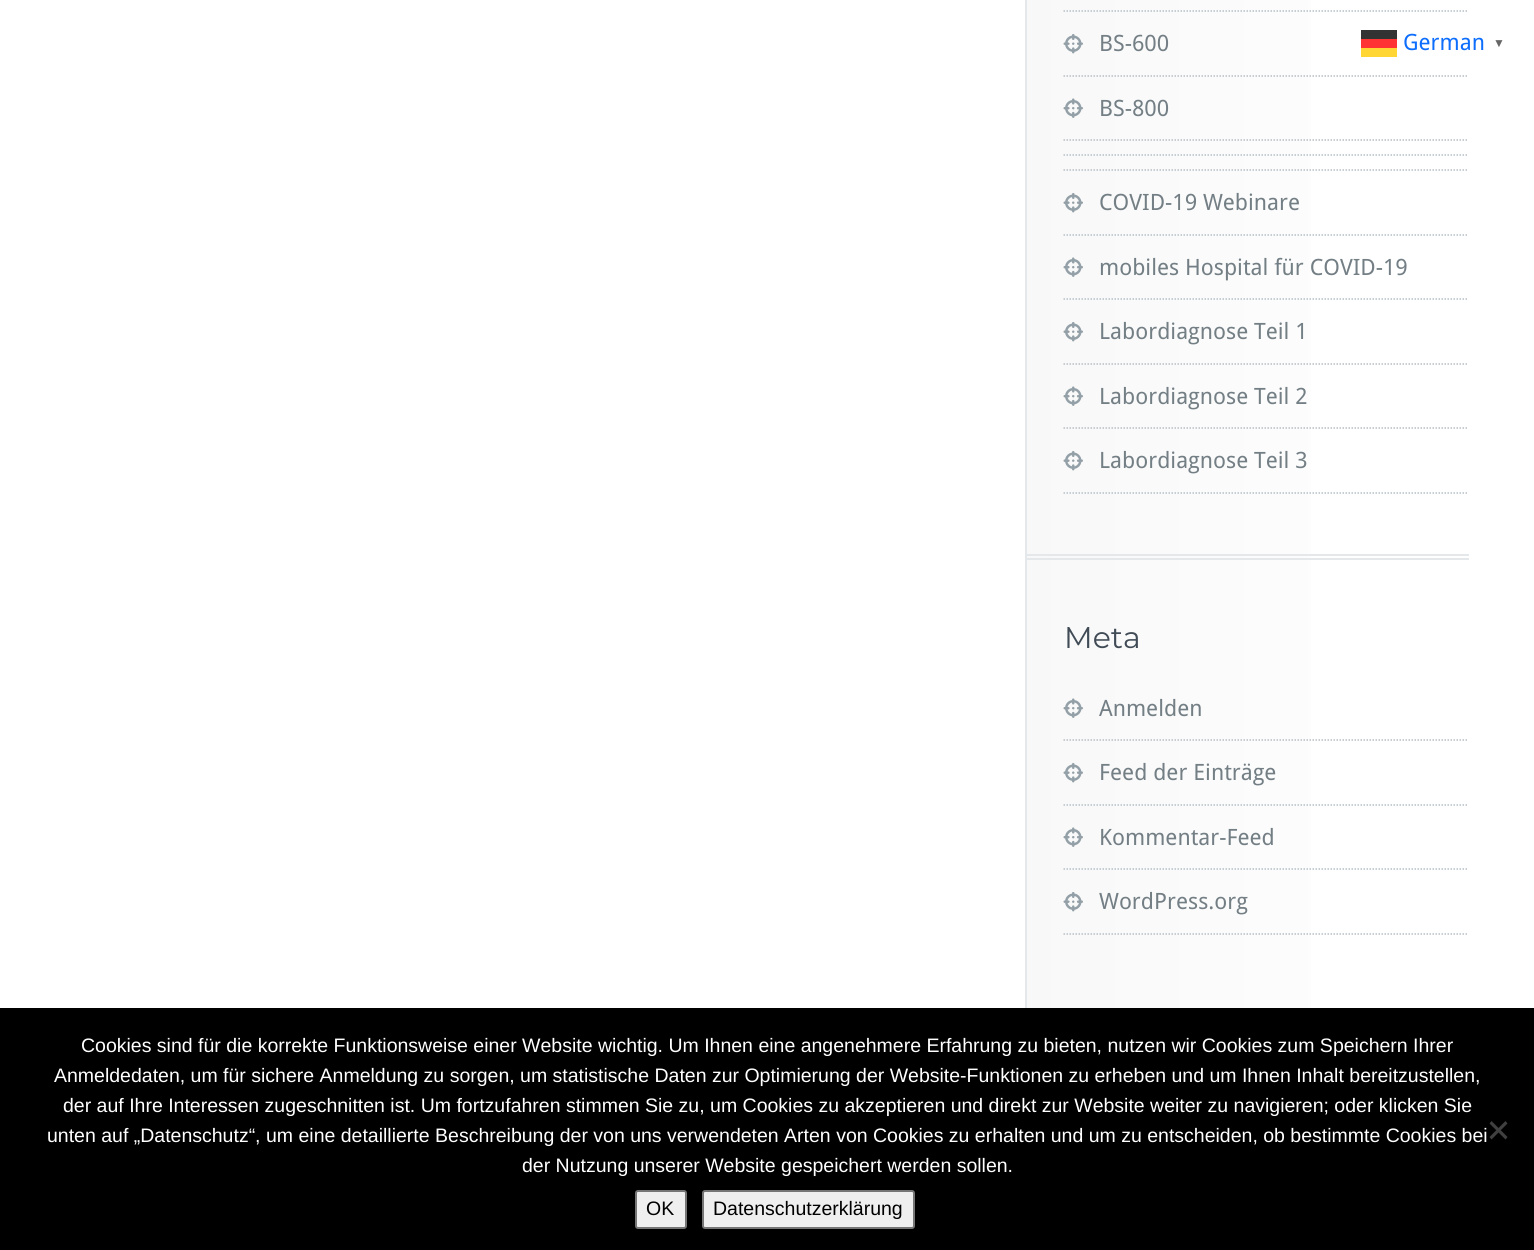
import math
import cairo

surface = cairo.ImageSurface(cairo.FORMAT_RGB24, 1534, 1250)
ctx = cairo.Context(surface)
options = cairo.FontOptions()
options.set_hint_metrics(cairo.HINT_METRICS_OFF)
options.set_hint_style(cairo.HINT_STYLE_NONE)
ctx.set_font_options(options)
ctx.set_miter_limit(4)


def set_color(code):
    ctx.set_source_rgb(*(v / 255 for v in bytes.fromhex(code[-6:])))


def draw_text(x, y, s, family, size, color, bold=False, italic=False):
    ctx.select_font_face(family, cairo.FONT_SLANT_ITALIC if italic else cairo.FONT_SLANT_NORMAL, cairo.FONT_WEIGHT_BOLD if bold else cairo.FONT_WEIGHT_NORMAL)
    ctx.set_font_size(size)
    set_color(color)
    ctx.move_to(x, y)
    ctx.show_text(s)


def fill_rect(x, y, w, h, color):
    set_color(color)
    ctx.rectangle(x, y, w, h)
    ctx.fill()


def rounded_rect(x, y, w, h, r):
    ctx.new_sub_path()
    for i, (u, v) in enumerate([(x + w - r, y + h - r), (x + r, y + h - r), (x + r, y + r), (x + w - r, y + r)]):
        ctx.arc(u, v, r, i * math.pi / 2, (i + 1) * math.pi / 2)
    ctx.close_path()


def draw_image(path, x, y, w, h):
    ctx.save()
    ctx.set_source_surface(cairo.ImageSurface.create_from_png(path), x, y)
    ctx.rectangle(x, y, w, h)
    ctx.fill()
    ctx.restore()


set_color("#ffffff")
ctx.paint()
gradient = cairo.LinearGradient(1026, -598, 1469, -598)
gradient.add_color_stop_rgba(0, 0.973, 0.973, 0.973, 1)
gradient.add_color_stop_rgba(1, 1, 1, 1, 1)
ctx.set_source(gradient)
ctx.rectangle(1027, 0, 284, 1008)
ctx.fill()
fill_rect(1025, 0, 2, 1008, "#e4e8ea")
fill_rect(1026, 554, 443, 2, "#e4e8ea")
fill_rect(1026, 558, 443, 2, "#e4e8ea")
ctx.new_path()
ctx.move_to(1063.5, 170)
ctx.line_to(1468.5, 170)
set_color("#b4bfc5")
ctx.set_line_width(1.5)
ctx.set_dash([1.5, 1.5])
ctx.stroke()
ctx.new_path()
ctx.move_to(1063.5, 155)
ctx.line_to(1468.5, 155)
ctx.stroke()
ctx.new_path()
ctx.move_to(1063.5, 11)
ctx.line_to(1468.5, 11)
ctx.stroke()
ctx.new_path()
ctx.move_to(1063.5, 76)
ctx.line_to(1468.5, 76)
ctx.stroke()
draw_image("assets/img1.png", 1063, 34, 20, 20)
draw_text(1099, 51, "BS-600", "Droid Sans", 22.5, "#737f85")
ctx.new_path()
ctx.move_to(1063.5, 140)
ctx.line_to(1468.5, 140)
set_color("#b4bfc5")
ctx.stroke()
draw_image("assets/img2.png", 1063, 98, 20, 20)
draw_text(1099, 116, "BS-800", "Droid Sans", 22.5, "#737f85")
ctx.new_path()
ctx.move_to(1063.5, 235)
ctx.line_to(1468.5, 235)
set_color("#b4bfc5")
ctx.stroke()
draw_image("assets/img1.png", 1063, 193, 20, 20)
draw_text(1099, 210, "COVID-19 Webinare", "Droid Sans", 22.5, "#737f85")
ctx.new_path()
ctx.move_to(1063.5, 299)
ctx.line_to(1468.5, 299)
set_color("#b4bfc5")
ctx.stroke()
draw_image("assets/img2.png", 1063, 257, 20, 20)
draw_text(1099, 275, "mobiles Hospital für COVID-19", "Droid Sans", 22.5, "#737f85")
ctx.new_path()
ctx.move_to(1063.5, 364)
ctx.line_to(1468.5, 364)
set_color("#b4bfc5")
ctx.stroke()
draw_image("assets/img1.png", 1063, 322, 20, 20)
draw_text(1099, 339, "Labordiagnose Teil 1", "Droid Sans", 22.5, "#737f85")
ctx.new_path()
ctx.move_to(1063.5, 428)
ctx.line_to(1468.5, 428)
set_color("#b4bfc5")
ctx.stroke()
draw_image("assets/img2.png", 1063, 386, 20, 20)
draw_text(1099, 404, "Labordiagnose Teil 2", "Droid Sans", 22.5, "#737f85")
ctx.new_path()
ctx.move_to(1063.5, 493)
ctx.line_to(1468.5, 493)
set_color("#b4bfc5")
ctx.stroke()
draw_image("assets/img1.png", 1063, 451, 20, 20)
draw_text(1099, 468, "Labordiagnose Teil 3", "Droid Sans", 22.5, "#737f85")
draw_text(1064, 648, "Meta", "Montserrat", 30, "#404b56")
ctx.new_path()
ctx.move_to(1063.5, 740)
ctx.line_to(1468.5, 740)
set_color("#b4bfc5")
ctx.stroke()
draw_image("assets/img2.png", 1063, 698, 20, 20)
draw_text(1099, 716, "Anmelden", "Droid Sans", 22.5, "#737f85")
ctx.new_path()
ctx.move_to(1063.5, 805)
ctx.line_to(1468.5, 805)
set_color("#b4bfc5")
ctx.stroke()
draw_image("assets/img1.png", 1063, 763, 20, 20)
draw_text(1099, 780, "Feed der Einträge", "Droid Sans", 22.5, "#737f85")
ctx.new_path()
ctx.move_to(1063.5, 869)
ctx.line_to(1468.5, 869)
set_color("#b4bfc5")
ctx.stroke()
draw_image("assets/img2.png", 1063, 827, 20, 20)
draw_text(1099, 845, "Kommentar-Feed", "Droid Sans", 22.5, "#737f85")
ctx.new_path()
ctx.move_to(1063.5, 934)
ctx.line_to(1468.5, 934)
set_color("#b4bfc5")
ctx.stroke()
draw_image("assets/img1.png", 1063, 892, 20, 20)
draw_text(1099, 909, "WordPress.org", "Droid Sans", 22.5, "#737f85")
draw_text(1403, 50, "German", "Droid Sans", 22.5, "#0d6efd")
fill_rect(1361, 48, 36, 9, "#ffd633")
fill_rect(1361, 30, 36, 9, "#333333")
fill_rect(1361, 39, 36, 9, "#ff3333")
draw_text(1493, 47, "▼", "Liberation Sans", 12, "#666666", bold=True)
fill_rect(0, 1008, 1534, 242, "#000000")
draw_text(81, 1052, "Cookies sind für die korrekte Funktionsweise einer Website wichtig. Um Ihnen eine angenehmere Erfahrung zu bieten, nutzen wir Cookies zum Speichern Ihrer", "Liberation Sans", 19.5, "#ffffff")
draw_text(54, 1082, "Anmeldedaten, um für sichere Anmeldung zu sorgen, um statistische Daten zur Optimierung der Website-Funktionen zu erheben und um Ihnen Inhalt bereitzustellen,", "Liberation Sans", 19.5, "#ffffff")
draw_text(63, 1112, "der auf Ihre Interessen zugeschnitten ist. Um fortzufahren stimmen Sie zu, um Cookies zu akzeptieren und direkt zur Website weiter zu navigieren; oder klicken Sie", "Liberation Sans", 19.5, "#ffffff")
draw_text(47, 1142, "unten auf „Datenschutz“, um eine detaillierte Beschreibung der von uns verwendeten Arten von Cookies zu erhalten und um zu entscheiden, ob bestimmte Cookies bei", "Liberation Sans", 19.5, "#ffffff")
draw_text(522, 1172, "der Nutzung unserer Website gespeichert werden sollen.", "Liberation Sans", 19.5, "#ffffff")
set_color("#404040")
ctx.new_path()
ctx.move_to(1505.5, 1121)
ctx.line_to(1507.5, 1123.5)
ctx.line_to(1491.5, 1139.5)
ctx.line_to(1489.5, 1137)
ctx.close_path()
ctx.fill()
ctx.new_path()
ctx.move_to(1489.5, 1123.5)
ctx.line_to(1491.5, 1121)
ctx.line_to(1507.5, 1137)
ctx.line_to(1505.5, 1139.5)
ctx.close_path()
ctx.fill()
set_color("#efefef")
rounded_rect(636, 1191, 50, 37, 2)
ctx.fill_preserve()
set_color("#767676")
ctx.set_line_width(2)
ctx.set_dash([])
ctx.stroke()
draw_text(646, 1215, "OK", "Liberation Sans", 19.5, "#000000")
set_color("#efefef")
rounded_rect(703, 1191, 211, 37, 2)
ctx.fill_preserve()
set_color("#767676")
ctx.stroke()
draw_text(713, 1215, "Datenschutzerklärung", "Liberation Sans", 19.5, "#000000")
surface.write_to_png("output.png")
